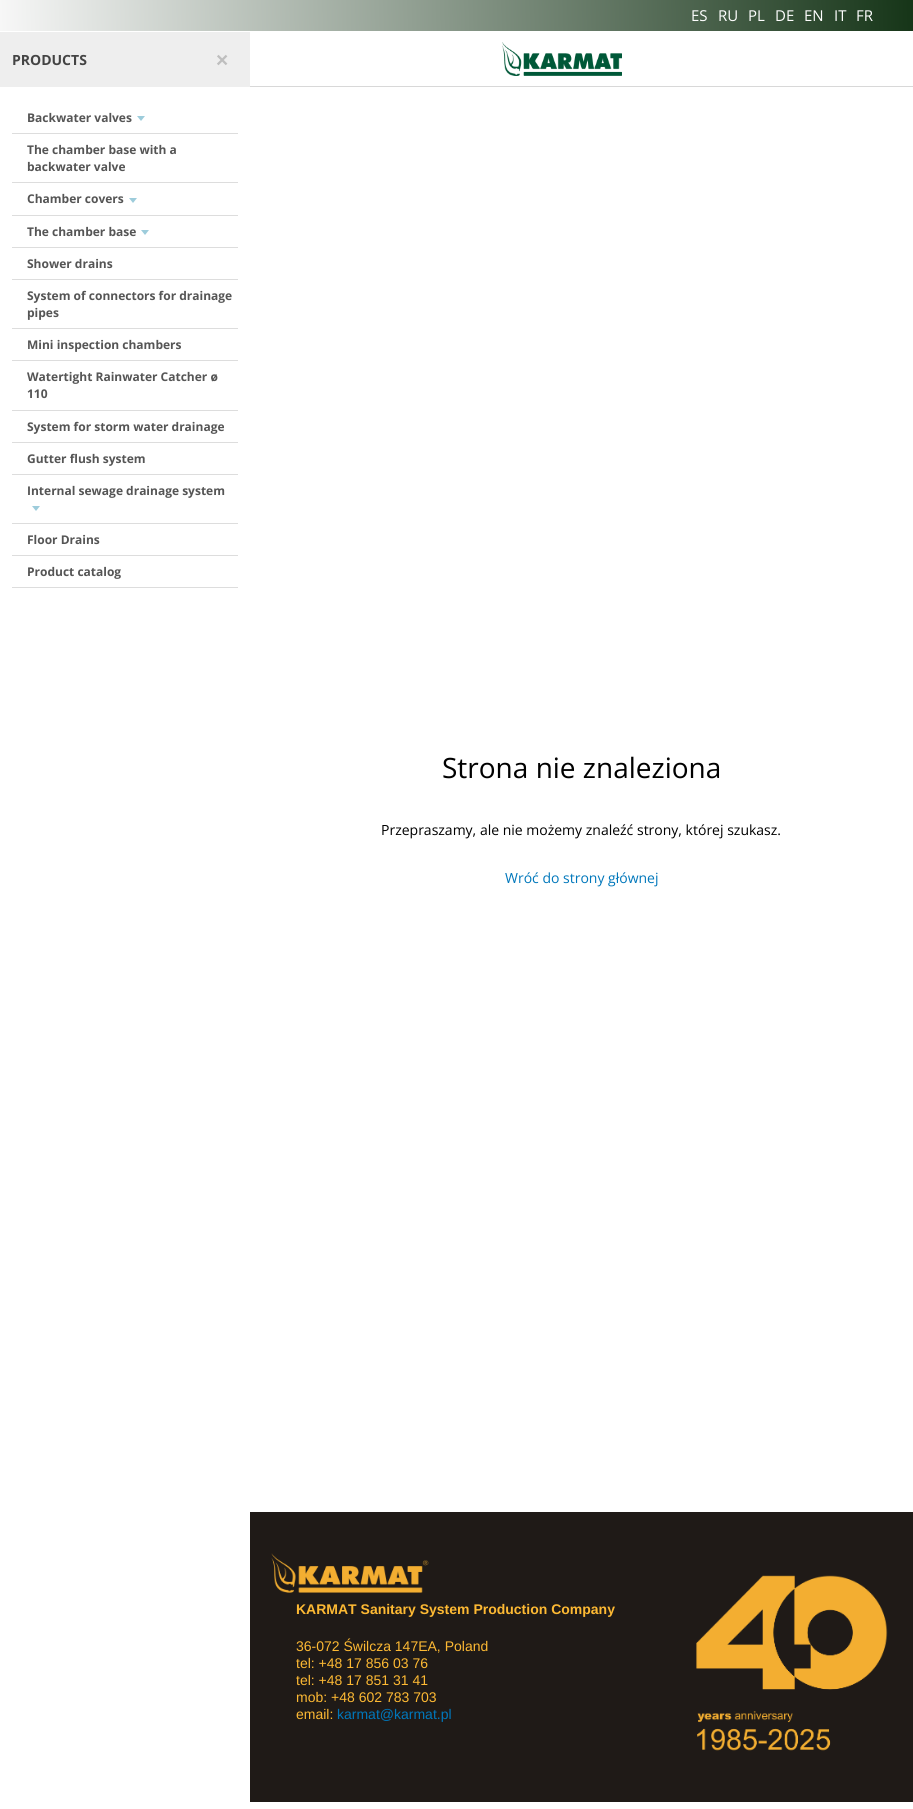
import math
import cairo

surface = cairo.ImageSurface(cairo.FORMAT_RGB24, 913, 1809)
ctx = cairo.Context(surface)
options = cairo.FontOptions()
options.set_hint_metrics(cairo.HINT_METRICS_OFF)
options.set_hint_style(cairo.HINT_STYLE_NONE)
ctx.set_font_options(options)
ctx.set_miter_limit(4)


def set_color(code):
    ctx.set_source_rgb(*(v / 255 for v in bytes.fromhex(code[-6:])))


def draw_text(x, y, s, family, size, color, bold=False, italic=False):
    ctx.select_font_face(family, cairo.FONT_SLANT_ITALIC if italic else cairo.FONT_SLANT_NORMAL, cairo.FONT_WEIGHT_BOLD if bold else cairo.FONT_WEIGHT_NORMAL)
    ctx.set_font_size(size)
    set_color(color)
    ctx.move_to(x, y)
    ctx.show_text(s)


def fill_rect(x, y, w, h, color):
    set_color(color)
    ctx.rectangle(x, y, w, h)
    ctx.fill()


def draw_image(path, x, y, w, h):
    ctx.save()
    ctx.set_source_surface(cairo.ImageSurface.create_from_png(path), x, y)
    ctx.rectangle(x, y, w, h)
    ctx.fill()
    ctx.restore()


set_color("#ffffff")
ctx.paint()
gradient = cairo.LinearGradient(0, 31, 913, 0)
gradient.add_color_stop_rgba(0, 0.969, 0.969, 0.969, 1)
gradient.add_color_stop_rgba(1, 0.086, 0.208, 0.094, 1)
ctx.set_source(gradient)
ctx.rectangle(0, 0, 913, 31)
ctx.fill()
draw_text(691, 21, "ES", "Open Sans", 15, "#ffffff")
draw_text(718, 21, "RU", "Open Sans", 15, "#ffffff")
draw_text(748, 21, "PL", "Open Sans", 15, "#ffffff")
draw_text(775, 21, "DE", "Open Sans", 15, "#ffffff")
draw_text(804, 21, "EN", "Open Sans", 15, "#ffffff")
draw_text(834, 21, "IT", "Open Sans", 15, "#ffffff")
draw_text(856, 21, "FR", "Open Sans", 15, "#ffffff")
fill_rect(250, 86, 663, 1, "#d8d8d8")
draw_image("assets/img1.png", 502, 42, 120, 34)
fill_rect(0, 32, 250, 55, "#eeeeee")
draw_text(12, 65, "PRODUCTS", "Open Sans", 14, "#444444", bold=True)
draw_text(216, 67, "×", "Liberation Sans", 21, "#bebebe", bold=True)
fill_rect(12, 133, 226, 1, "#dddddd")
draw_text(27, 122, "Backwater valves", "Open Sans", 12, "#555555", bold=True)
set_color("#9dccdb")
ctx.new_path()
ctx.move_to(137, 116)
ctx.line_to(145, 116)
ctx.line_to(141, 121)
ctx.close_path()
ctx.fill()
fill_rect(12, 182, 226, 1, "#dddddd")
draw_text(27, 154, "The chamber base with a", "Open Sans", 12, "#555555", bold=True)
draw_text(27, 171, "backwater valve", "Open Sans", 12, "#555555", bold=True)
fill_rect(12, 215, 226, 1, "#dddddd")
draw_text(27, 203, "Chamber covers", "Open Sans", 12, "#555555", bold=True)
set_color("#9dccdb")
ctx.new_path()
ctx.move_to(129, 198)
ctx.line_to(137, 198)
ctx.line_to(133, 203)
ctx.close_path()
ctx.fill()
fill_rect(12, 247, 226, 1, "#dddddd")
draw_text(27, 236, "The chamber base", "Open Sans", 12, "#555555", bold=True)
set_color("#9dccdb")
ctx.new_path()
ctx.move_to(141, 230)
ctx.line_to(149, 230)
ctx.line_to(145, 235)
ctx.close_path()
ctx.fill()
fill_rect(12, 279, 226, 1, "#dddddd")
draw_text(27, 268, "Shower drains", "Open Sans", 12, "#555555", bold=True)
fill_rect(12, 328, 226, 1, "#dddddd")
draw_text(27, 300, "System of connectors for drainage", "Open Sans", 12, "#555555", bold=True)
draw_text(27, 317, "pipes", "Open Sans", 12, "#555555", bold=True)
fill_rect(12, 360, 226, 1, "#dddddd")
draw_text(27, 349, "Mini inspection chambers", "Open Sans", 12, "#555555", bold=True)
fill_rect(12, 410, 226, 1, "#dddddd")
draw_text(27, 381, "Watertight Rainwater Catcher ø", "Open Sans", 12, "#555555", bold=True)
draw_text(27, 398, "110", "Open Sans", 12, "#555555", bold=True)
fill_rect(12, 442, 226, 1, "#dddddd")
draw_text(27, 431, "System for storm water drainage", "Open Sans", 12, "#555555", bold=True)
fill_rect(12, 474, 226, 1, "#dddddd")
draw_text(27, 463, "Gutter flush system", "Open Sans", 12, "#555555", bold=True)
fill_rect(12, 523, 226, 1, "#dddddd")
draw_text(27, 495, "Internal sewage drainage system", "Open Sans", 12, "#555555", bold=True)
set_color("#9dccdb")
ctx.new_path()
ctx.move_to(32, 506)
ctx.line_to(40, 506)
ctx.line_to(36, 511)
ctx.close_path()
ctx.fill()
fill_rect(12, 555, 226, 1, "#dddddd")
draw_text(27, 544, "Floor Drains", "Open Sans", 12, "#555555", bold=True)
fill_rect(12, 587, 226, 1, "#dddddd")
draw_text(27, 576, "Product catalog", "Open Sans", 12, "#555555", bold=True)
draw_text(442, 778, "Strona nie znaleziona", "Open Sans", 28, "#000000")
draw_text(381, 835, "Przepraszamy, ale nie możemy znaleźć strony, której szukasz.", "Open Sans", 14, "#000000")
draw_text(505, 883, "Wróć do strony głównej", "Open Sans", 14, "#0077bb")
fill_rect(250, 1512, 663, 290, "#1f1a17")
draw_image("assets/img2.png", 271, 1553, 158, 40)
draw_text(296, 1614, "KARMAT Sanitary System Production Company", "Liberation Sans", 14, "#fdb933", bold=True)
draw_text(296, 1651, "36-072 Świlcza 147EA, Poland", "Liberation Sans", 14, "#fdb933")
draw_text(296, 1668, "tel: +48 17 856 03 76", "Liberation Sans", 14, "#fdb933")
draw_text(296, 1685, "tel: +48 17 851 31 41", "Liberation Sans", 14, "#fdb933")
draw_text(296, 1702, "mob: +48 602 783 703", "Liberation Sans", 14, "#fdb933")
draw_text(296, 1719, "email:", "Liberation Sans", 14, "#fdb933")
draw_text(337, 1719, "karmat@karmat.pl", "Liberation Sans", 14, "#0077bb")
draw_image("assets/img3.png", 696, 1575, 192, 176)
surface.write_to_png("output.png")
